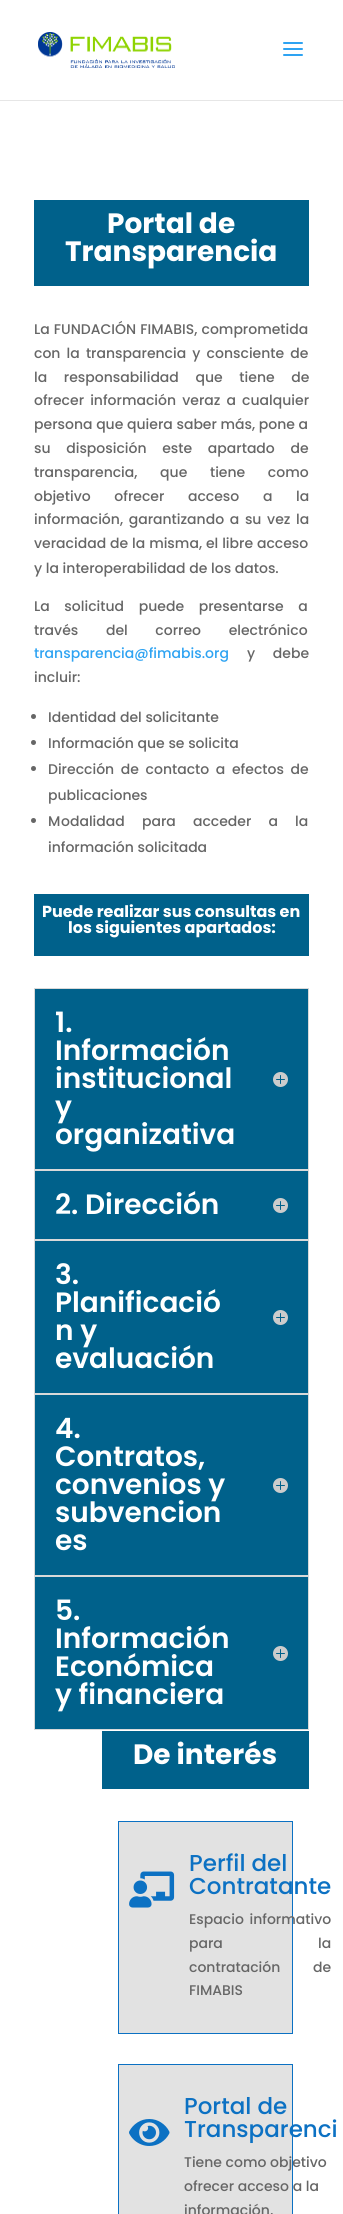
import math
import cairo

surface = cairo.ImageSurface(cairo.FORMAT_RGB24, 343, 2214)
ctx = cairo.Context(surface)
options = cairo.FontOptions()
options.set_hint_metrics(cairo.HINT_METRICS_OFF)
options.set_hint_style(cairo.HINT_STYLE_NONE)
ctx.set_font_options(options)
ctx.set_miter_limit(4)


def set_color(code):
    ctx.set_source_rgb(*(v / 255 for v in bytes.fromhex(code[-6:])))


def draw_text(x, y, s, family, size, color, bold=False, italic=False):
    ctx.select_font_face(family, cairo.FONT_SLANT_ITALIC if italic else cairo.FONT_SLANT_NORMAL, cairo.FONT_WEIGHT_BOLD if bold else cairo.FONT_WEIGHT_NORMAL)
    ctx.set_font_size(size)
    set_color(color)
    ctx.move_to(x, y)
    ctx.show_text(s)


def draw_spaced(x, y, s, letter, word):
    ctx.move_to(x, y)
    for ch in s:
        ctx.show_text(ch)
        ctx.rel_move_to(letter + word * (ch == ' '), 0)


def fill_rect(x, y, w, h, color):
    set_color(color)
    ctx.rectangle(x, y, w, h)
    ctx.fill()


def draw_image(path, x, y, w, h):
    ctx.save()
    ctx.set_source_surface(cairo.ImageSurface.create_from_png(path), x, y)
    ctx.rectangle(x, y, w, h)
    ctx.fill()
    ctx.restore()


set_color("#ffffff")
ctx.paint()
fill_rect(0, 100, 343, 1, "#e6e6e6")
draw_image("assets/img1.png", 38, 32, 137, 36)
draw_image("assets/img2.png", 283, 42, 20, 14)
fill_rect(34, 200, 275, 86, "#00618b")
draw_text(107, 233, "Portal de", "Poppins", 28, "#ffffff", bold=True)
draw_text(65, 261, "Transparencia", "Poppins", 28, "#ffffff", bold=True)
ctx.select_font_face("Poppins Medium")
ctx.set_font_size(14)
set_color("#666666")
draw_spaced(34, 334, "La FUNDACIÓN FIMABIS, comprometida", 0, 0.5)
draw_spaced(34, 358, "con la transparencia y consciente de", 0, 2.5)
draw_spaced(34, 382, "la responsabilidad que tiene de", 0, 13)
draw_spaced(34, 405, "ofrecer información veraz a cualquier", 0, 2.5)
draw_text(34, 429, "persona que quiera saber más, pone a", "Poppins Medium", 14, "#666666")
draw_spaced(34, 453, "su disposición este apartado de", 0, 12)
draw_spaced(34, 477, "transparencia, que tiene como", 0, 19)
draw_spaced(34, 501, "objetivo ofrecer acceso a la", 0, 20)
draw_spaced(34, 524, "información, garantizando a su vez la", 0, 2)
draw_spaced(34, 548, "veracidad de la misma, el libre acceso", 0, 0.25)
draw_text(34, 573, "y la interoperabilidad de los datos.", "Poppins Medium", 14, "#666666")
draw_spaced(34, 611, "La solicitud puede presentarse a", 0, 11)
draw_spaced(34, 635, "través del correo electrónico", 0, 24)
draw_text(34, 658, "transparencia@fimabis.org", "Poppins Medium", 14, "#2ea3f2")
set_color("#666666")
draw_spaced(247, 658, "y debe", 0, 14)
draw_text(34, 682, "incluir:", "Poppins Medium", 14, "#666666")
ctx.new_path()
ctx.arc(33.5, 716.5, 2.5, 0, 2 * math.pi)
ctx.fill()
draw_text(48, 722, "Identidad del solicitante", "Poppins Medium", 14, "#666666")
ctx.new_path()
ctx.arc(33.5, 742.5, 2.5, 0, 2 * math.pi)
ctx.fill()
draw_text(48, 748, "Información que se solicita", "Poppins Medium", 14, "#666666")
ctx.new_path()
ctx.arc(33.5, 768.5, 2.5, 0, 2 * math.pi)
ctx.fill()
draw_spaced(48, 774, "Dirección de contacto a efectos de", 0, 3)
draw_text(48, 800, "publicaciones", "Poppins Medium", 14, "#666666")
ctx.new_path()
ctx.arc(33.5, 820.5, 2.5, 0, 2 * math.pi)
ctx.fill()
draw_text(48, 826, "M", "Poppins Medium", 14, "#666666")
draw_spaced(61, 826, "odalidad para acceder a la", 0, 13.5)
draw_text(48, 852, "información solicitada", "Poppins Medium", 14, "#666666")
fill_rect(34, 894, 275, 62, "#00618b")
draw_text(42, 917, "Puede realizar sus consultas en", "Poppins", 16, "#ffffff", bold=True)
draw_text(68, 933, "los siguientes apartados:", "Poppins", 16, "#ffffff", bold=True)
set_color("#00618b")
ctx.rectangle(34.5, 988.5, 274, 181)
ctx.fill_preserve()
set_color("#d9d9d9")
ctx.set_line_width(1)
ctx.stroke()
draw_text(55, 1032, "1.", "Poppins SemiBold", 28, "#ffffff")
draw_text(55, 1060, "Información", "Poppins SemiBold", 28, "#ffffff")
draw_text(55, 1088, "institucional", "Poppins SemiBold", 28, "#ffffff")
draw_image("assets/img3.png", 273, 1072, 15, 15)
draw_text(55, 1116, "y", "Poppins SemiBold", 28, "#ffffff")
draw_text(55, 1144, "organizativa", "Poppins SemiBold", 28, "#ffffff")
set_color("#00618b")
ctx.rectangle(34.5, 1170.5, 274, 69)
ctx.fill_preserve()
set_color("#d9d9d9")
ctx.stroke()
draw_text(55, 1214, "2. Dirección", "Poppins SemiBold", 28, "#ffffff")
draw_image("assets/img3.png", 273, 1198, 15, 15)
set_color("#00618b")
ctx.rectangle(34.5, 1240.5, 274, 153)
ctx.fill_preserve()
set_color("#d9d9d9")
ctx.stroke()
draw_text(55, 1284, "3.", "Poppins SemiBold", 28, "#ffffff")
draw_text(55, 1312, "Planificació", "Poppins SemiBold", 28, "#ffffff")
draw_image("assets/img3.png", 273, 1310, 15, 15)
draw_text(55, 1340, "n y", "Poppins SemiBold", 28, "#ffffff")
draw_text(55, 1368, "evaluación", "Poppins SemiBold", 28, "#ffffff")
set_color("#00618b")
ctx.rectangle(34.5, 1394.5, 274, 181)
ctx.fill_preserve()
set_color("#d9d9d9")
ctx.stroke()
draw_text(55, 1438, "4.", "Poppins SemiBold", 28, "#ffffff")
draw_text(55, 1466, "Contratos,", "Poppins SemiBold", 28, "#ffffff")
draw_text(55, 1494, "convenios y", "Poppins SemiBold", 28, "#ffffff")
draw_image("assets/img3.png", 273, 1478, 15, 15)
draw_text(55, 1522, "subvencion", "Poppins SemiBold", 28, "#ffffff")
draw_text(55, 1550, "es", "Poppins SemiBold", 28, "#ffffff")
set_color("#00618b")
ctx.rectangle(34.5, 1576.5, 274, 153)
ctx.fill_preserve()
set_color("#d9d9d9")
ctx.stroke()
draw_text(55, 1620, "5.", "Poppins SemiBold", 28, "#ffffff")
draw_text(55, 1648, "Información", "Poppins SemiBold", 28, "#ffffff")
draw_text(55, 1676, "Económica", "Poppins SemiBold", 28, "#ffffff")
draw_image("assets/img3.png", 273, 1646, 15, 15)
draw_text(55, 1704, "y financiera", "Poppins SemiBold", 28, "#ffffff")
fill_rect(102, 1731, 207, 58, "#00618b")
draw_text(133, 1764, "De interés", "Poppins", 28, "#ffffff", bold=True)
set_color("#e2e2e2")
ctx.rectangle(118.5, 1821.5, 174, 212)
ctx.fill_preserve()
set_color("#0c71c3")
ctx.stroke()
draw_image("assets/img4.png", 129, 1871, 46, 37)
draw_text(189, 1871, "Perfil del", "Poppins Medium", 23, "#0c71c3")
draw_text(189, 1894, "Contratante", "Poppins Medium", 23, "#0c71c3")
ctx.set_font_size(14)
set_color("#666666")
draw_spaced(189, 1924, "Espacio informativo", 0, 2)
draw_spaced(189, 1948, "para                       la", 0, 0.5)
draw_spaced(189, 1972, "contratación de", 0, 29)
draw_text(189, 1995, "FIMABIS", "Poppins Medium", 14, "#666666")
set_color("#e2e2e2")
ctx.rectangle(118.5, 2064.5, 174, 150)
ctx.fill_preserve()
set_color("#0c71c3")
ctx.stroke()
draw_image("assets/img5.png", 129, 2119, 41, 27)
draw_text(184, 2114, "Portal de", "Poppins Medium", 23, "#0c71c3")
draw_text(184, 2137, "Transparenci", "Poppins Medium", 23, "#0c71c3")
draw_text(184, 2167, "Tiene como objetivo", "Poppins Medium", 14, "#666666")
draw_text(184, 2191, "ofrecer acceso a la", "Poppins Medium", 14, "#666666")
draw_text(184, 2215, "información,", "Poppins Medium", 14, "#666666")
surface.write_to_png("output.png")
